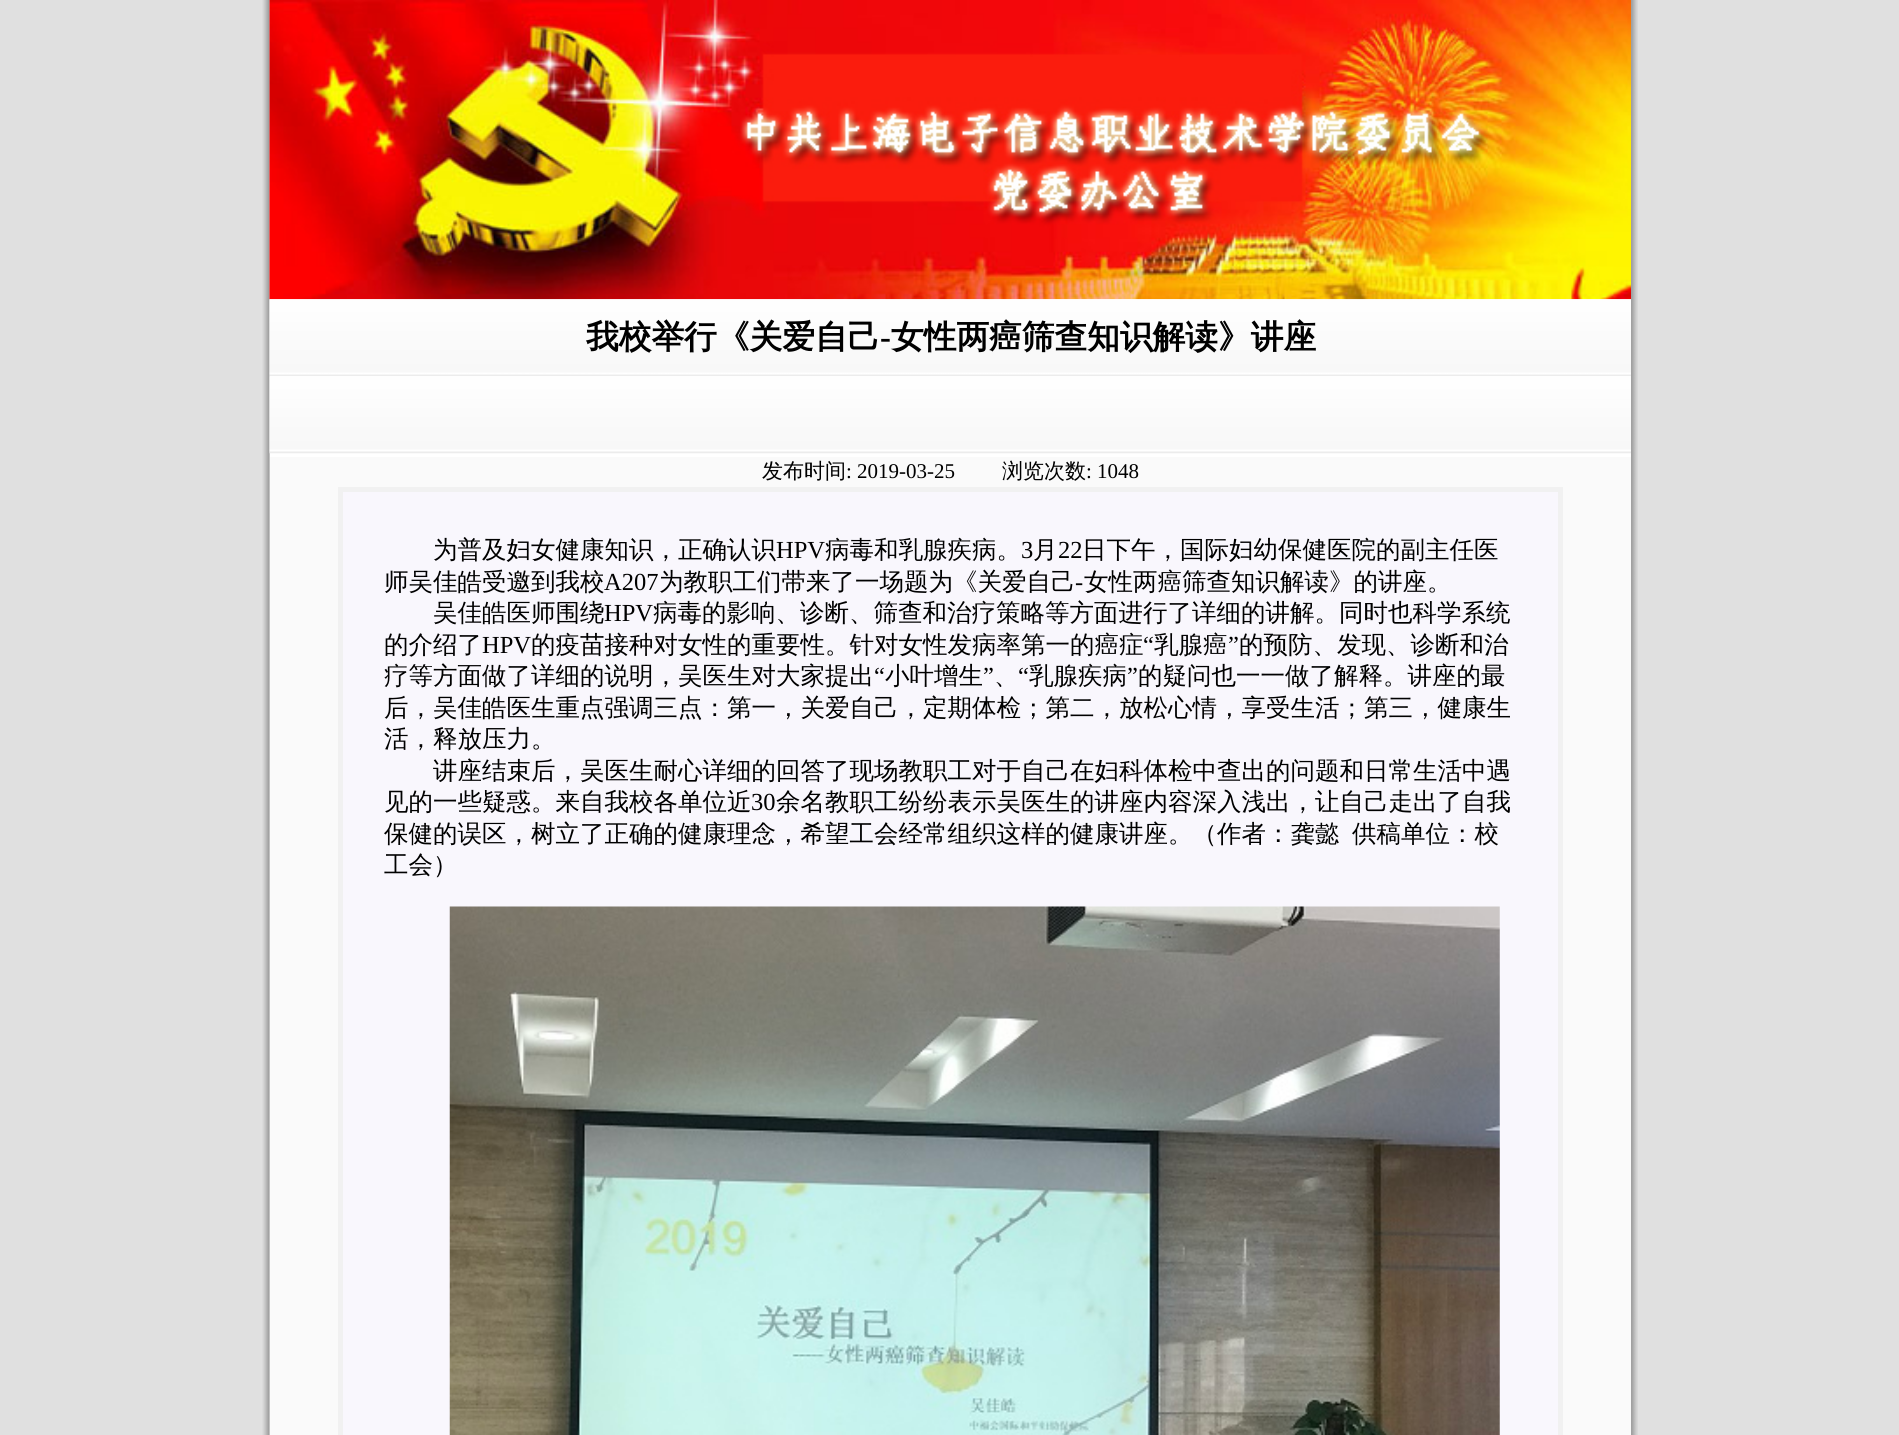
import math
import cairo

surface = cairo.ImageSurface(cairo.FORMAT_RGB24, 1899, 1435)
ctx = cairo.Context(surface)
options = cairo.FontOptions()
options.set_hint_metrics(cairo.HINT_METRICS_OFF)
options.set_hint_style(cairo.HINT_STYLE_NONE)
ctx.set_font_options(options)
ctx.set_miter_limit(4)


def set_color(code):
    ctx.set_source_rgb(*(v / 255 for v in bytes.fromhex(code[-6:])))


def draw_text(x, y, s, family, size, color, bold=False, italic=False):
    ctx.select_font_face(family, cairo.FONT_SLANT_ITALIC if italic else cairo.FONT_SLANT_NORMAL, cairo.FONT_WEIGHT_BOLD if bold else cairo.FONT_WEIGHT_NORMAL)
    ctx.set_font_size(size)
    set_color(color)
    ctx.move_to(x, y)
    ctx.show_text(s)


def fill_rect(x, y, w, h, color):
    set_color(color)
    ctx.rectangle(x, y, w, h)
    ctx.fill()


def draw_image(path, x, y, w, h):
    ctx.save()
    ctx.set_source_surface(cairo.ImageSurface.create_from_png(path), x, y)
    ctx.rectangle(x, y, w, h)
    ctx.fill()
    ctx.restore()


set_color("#e0e0e0")
ctx.paint()
draw_image("assets/img1.png", 262, 0, 8, 1435)
fill_rect(270, 299, 1361, 158, "#ffffff")
draw_image("assets/img2.png", 269, 0, 1362, 300)
draw_image("assets/img3.png", 269, 299, 1362, 78)
draw_text(586, 348, "我校举行《关爱自己", "WenQuanYi Zen Hei", 32.7, "#000000", bold=True)
draw_text(880, 348, "-", "Liberation Serif", 32.7, "#000000", bold=True)
draw_text(891, 348, "女性两癌筛查知识解读》讲座", "WenQuanYi Zen Hei", 32.7, "#000000", bold=True)
draw_image("assets/img4.png", 269, 376, 1362, 78)
fill_rect(270, 457, 1361, 978, "#fafafa")
draw_text(762, 478, "发布时间", "WenQuanYi Zen Hei Medium", 21, "#000000")
draw_text(846, 478, ": 2019-03-25", "Liberation Serif", 21, "#000000")
draw_text(1002, 478, "浏览次数", "WenQuanYi Zen Hei Medium", 21, "#000000")
draw_text(1086, 478, ": 1048", "Liberation Serif", 21, "#000000")
fill_rect(338, 487, 1225, 5, "#f1f1f1")
fill_rect(1558, 487, 5, 948, "#f1f1f1")
fill_rect(338, 487, 5, 948, "#f1f1f1")
fill_rect(343, 492, 1215, 943, "#f9f7fd")
draw_text(433, 558, "为普及妇女健康知识，正确认识", "WenQuanYi Zen Hei Medium", 24.5, "#000000")
draw_text(776, 558, "HPV", "Liberation Serif", 24.5, "#000000")
draw_text(825, 558, "病毒和乳腺疾病。", "WenQuanYi Zen Hei Medium", 24.5, "#000000")
draw_text(1021, 558, "3", "Liberation Serif", 24.5, "#000000")
draw_text(1033, 558, "月", "WenQuanYi Zen Hei Medium", 24.5, "#000000")
draw_text(1058, 558, "22", "Liberation Serif", 24.5, "#000000")
draw_text(1082, 558, "日下午，国际妇幼保健医院的副主任医", "WenQuanYi Zen Hei Medium", 24.5, "#000000")
draw_text(384, 590, "师吴佳皓受邀到我校", "WenQuanYi Zen Hei Medium", 24.5, "#000000")
draw_text(604, 590, "A207", "Liberation Serif", 24.5, "#000000")
draw_text(659, 590, "为教职工们带来了一场题为《关爱自己", "WenQuanYi Zen Hei Medium", 24.5, "#000000")
draw_text(1075, 590, "-", "Liberation Serif", 24.5, "#000000")
draw_text(1084, 590, "女性两癌筛查知识解读》的讲座。", "WenQuanYi Zen Hei Medium", 24.5, "#000000")
draw_text(433, 621, "吴佳皓医师围绕", "WenQuanYi Zen Hei Medium", 24.5, "#000000")
draw_text(604, 621, "HPV", "Liberation Serif", 24.5, "#000000")
draw_text(653, 621, "病毒的影响、诊断、筛查和治疗策略等方面进行了详细的讲解。同时也科学系统", "WenQuanYi Zen Hei Medium", 24.5, "#000000")
draw_text(384, 653, "的介绍了", "WenQuanYi Zen Hei Medium", 24.5, "#000000")
draw_text(482, 653, "HPV", "Liberation Serif", 24.5, "#000000")
draw_text(531, 653, "的疫苗接种对女性的重要性。针对女性发病率第一的癌症", "WenQuanYi Zen Hei Medium", 24.5, "#000000")
draw_text(1143, 653, "“", "Liberation Serif", 24.5, "#000000")
draw_text(1154, 653, "乳腺癌", "WenQuanYi Zen Hei Medium", 24.5, "#000000")
draw_text(1228, 653, "”", "Liberation Serif", 24.5, "#000000")
draw_text(1239, 653, "的预防、发现、诊断和治", "WenQuanYi Zen Hei Medium", 24.5, "#000000")
draw_text(384, 684, "疗等方面做了详细的说明，吴医生对大家提出", "WenQuanYi Zen Hei Medium", 24.5, "#000000")
draw_text(874, 684, "“", "Liberation Serif", 24.5, "#000000")
draw_text(885, 684, "小叶增生", "WenQuanYi Zen Hei Medium", 24.5, "#000000")
draw_text(983, 684, "”", "Liberation Serif", 24.5, "#000000")
draw_text(1018, 684, "“", "Liberation Serif", 24.5, "#000000")
draw_text(1029, 684, "乳腺疾病", "WenQuanYi Zen Hei Medium", 24.5, "#000000")
draw_text(1127, 684, "”", "Liberation Serif", 24.5, "#000000")
draw_text(1138, 684, "的疑问也一一做了解释。讲座的最", "WenQuanYi Zen Hei Medium", 24.5, "#000000")
draw_text(994, 684, "、", "WenQuanYi Zen Hei Medium", 24.5, "#000000")
draw_text(384, 716, "后，吴佳皓医生重点强调三点：第一，关爱自己，定期体检；第二，放松心情，享受生活；第三，健康生", "WenQuanYi Zen Hei Medium", 24.5, "#000000")
draw_text(384, 747, "活，释放压力。", "WenQuanYi Zen Hei Medium", 24.5, "#000000")
draw_text(433, 779, "讲座结束后，吴医生耐心详细的回答了现场教职工对于自己在妇科体检中查出的问题和日常生活中遇", "WenQuanYi Zen Hei Medium", 24.5, "#000000")
draw_text(384, 810, "见的一些疑惑。来自我校各单位近", "WenQuanYi Zen Hei Medium", 24.5, "#000000")
draw_text(751, 810, "30", "Liberation Serif", 24.5, "#000000")
draw_text(776, 810, "余名教职工纷纷表示吴医生的讲座内容深入浅出，让自己走出了自我", "WenQuanYi Zen Hei Medium", 24.5, "#000000")
draw_text(384, 842, "保健的误区，树立了正确的健康理念，希望工会经常组织这样的健康讲座。（作者：龚懿", "WenQuanYi Zen Hei Medium", 24.5, "#000000")
draw_text(1352, 842, "供稿单位：校", "WenQuanYi Zen Hei Medium", 24.5, "#000000")
draw_text(384, 873, "工会）", "WenQuanYi Zen Hei Medium", 24.5, "#000000")
draw_image("assets/img5.png", 449, 906, 1051, 529)
draw_image("assets/img6.png", 1631, 0, 7, 1435)
surface.write_to_png("output.png")
